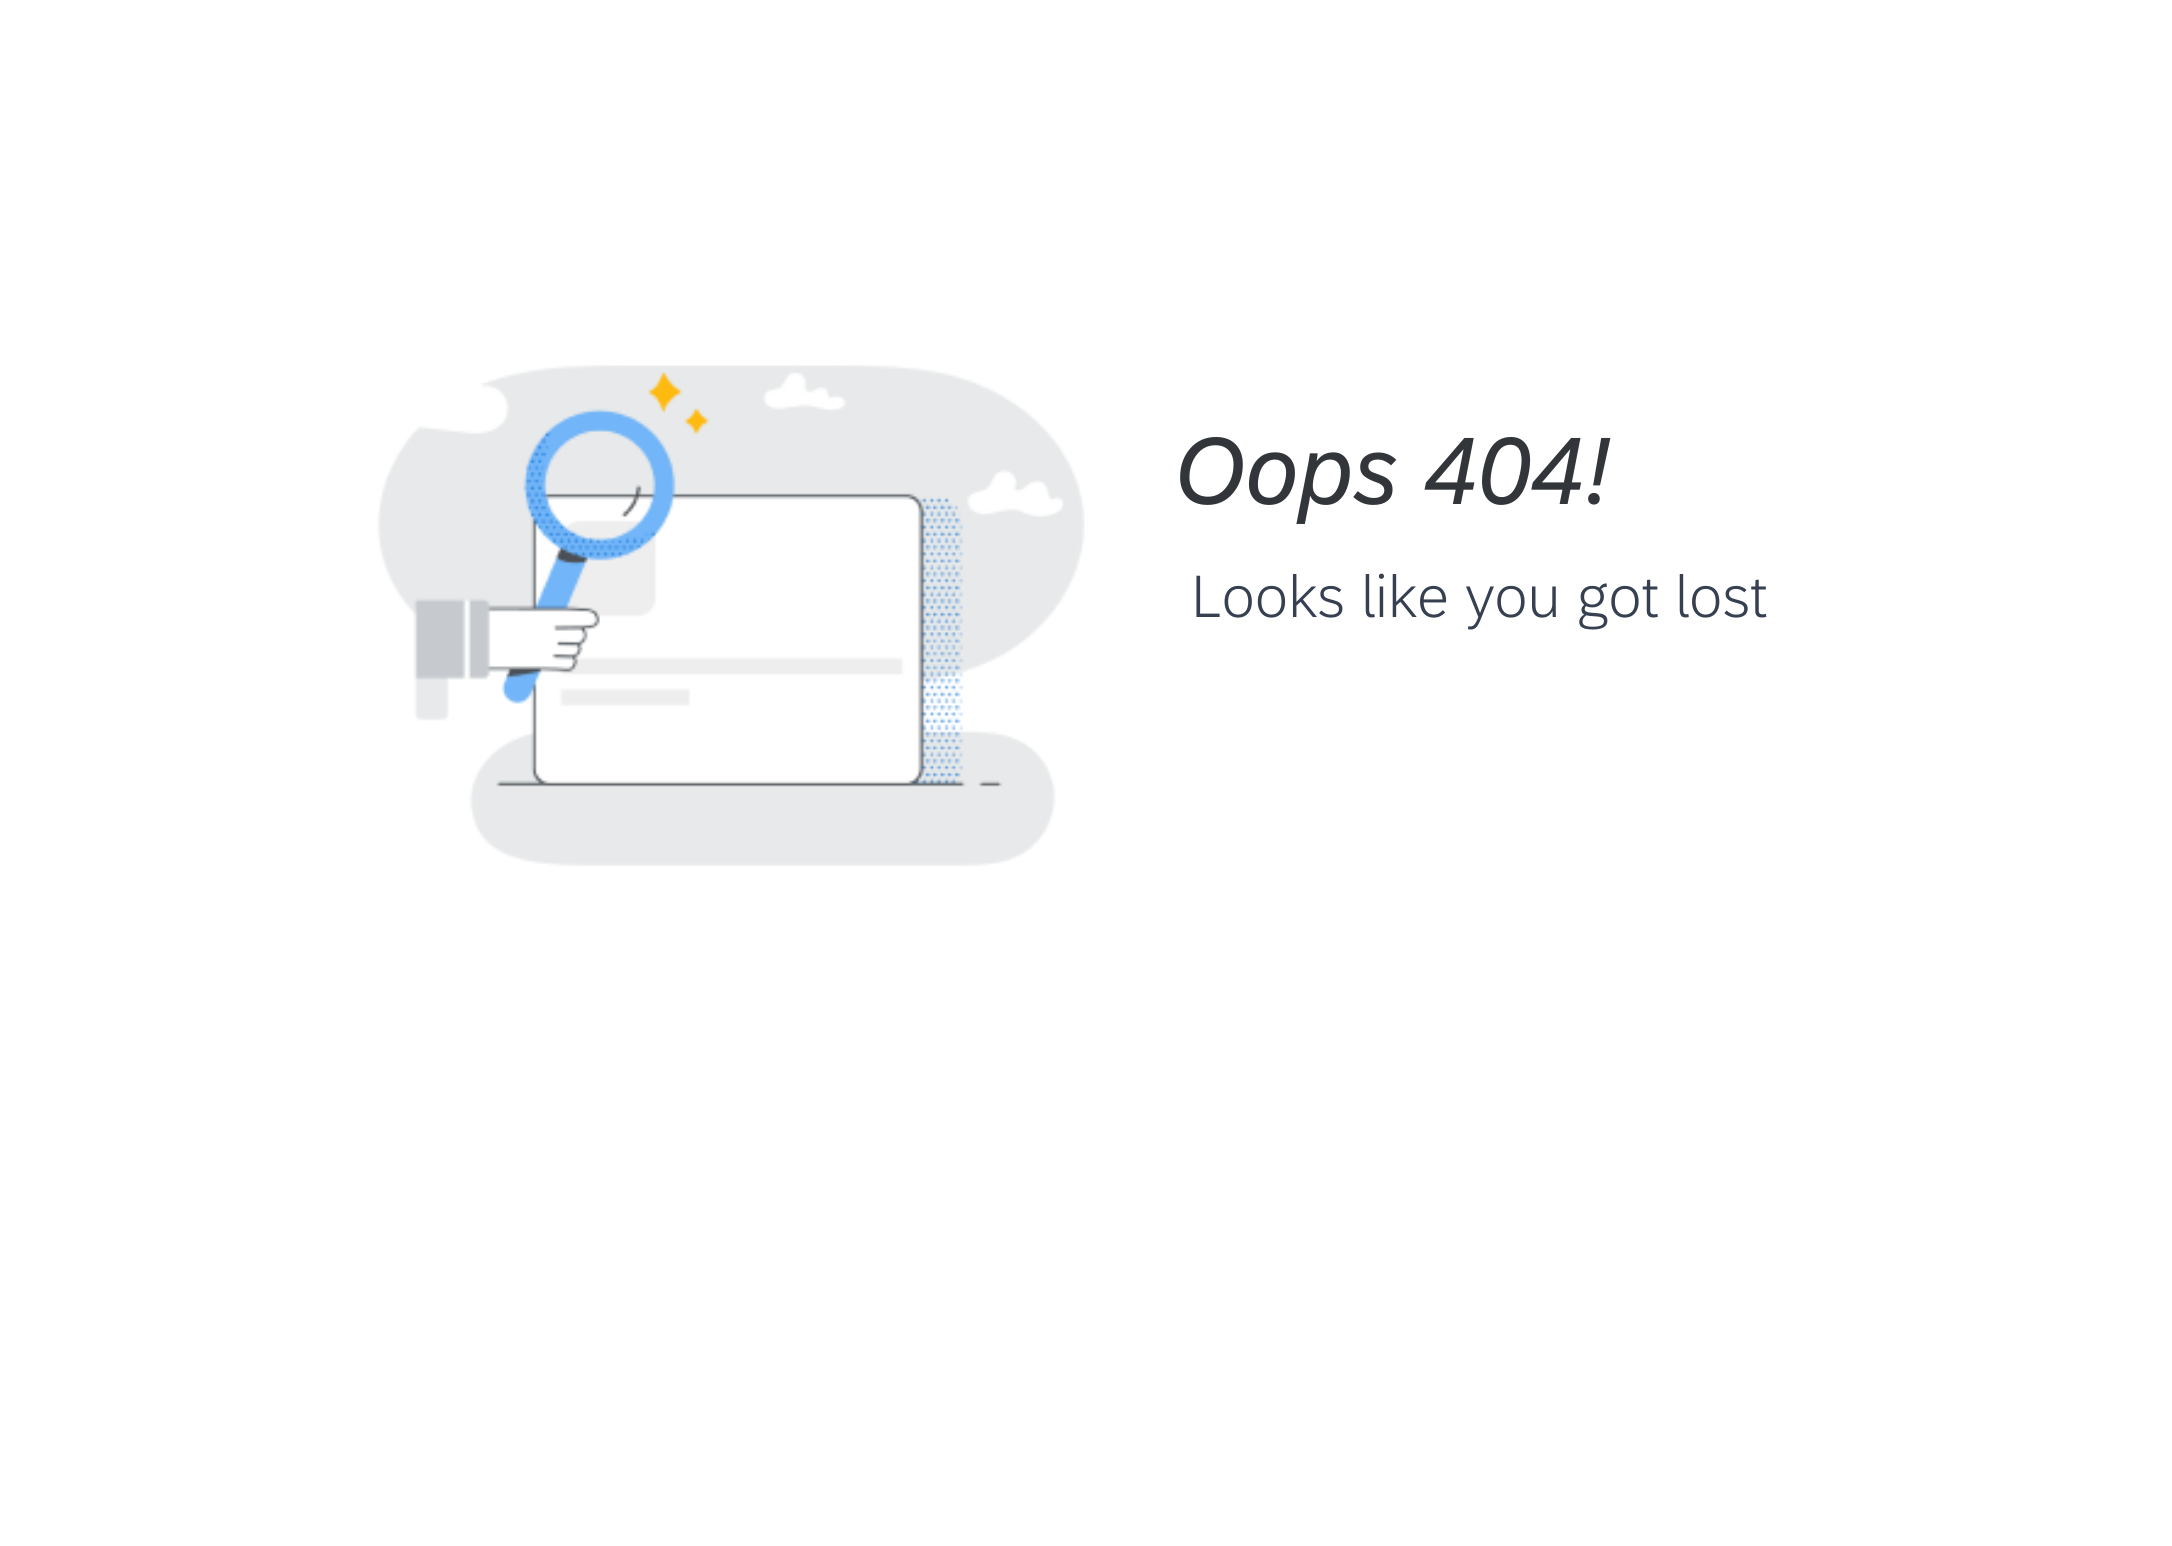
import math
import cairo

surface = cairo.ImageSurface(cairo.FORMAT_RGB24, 2172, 1546)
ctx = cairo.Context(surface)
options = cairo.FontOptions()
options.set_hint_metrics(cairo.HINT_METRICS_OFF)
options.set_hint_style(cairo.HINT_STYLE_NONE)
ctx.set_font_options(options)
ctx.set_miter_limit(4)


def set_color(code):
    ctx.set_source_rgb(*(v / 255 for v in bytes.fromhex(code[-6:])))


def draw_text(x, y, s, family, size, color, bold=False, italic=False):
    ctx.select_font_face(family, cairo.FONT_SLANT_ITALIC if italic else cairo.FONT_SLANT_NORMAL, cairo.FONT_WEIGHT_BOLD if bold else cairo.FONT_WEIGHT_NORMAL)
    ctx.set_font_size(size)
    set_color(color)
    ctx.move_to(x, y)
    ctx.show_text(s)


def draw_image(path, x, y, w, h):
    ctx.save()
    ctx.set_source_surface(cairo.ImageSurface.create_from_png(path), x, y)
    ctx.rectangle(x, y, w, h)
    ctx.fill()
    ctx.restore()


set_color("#ffffff")
ctx.paint()
draw_image("assets/img1.png", 377, 365, 708, 502)
draw_text(1176, 504, "Oops 404!", "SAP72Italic", 96, "#32363a", italic=True)
draw_text(1191, 617, "Looks like you got lost", "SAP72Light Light", 60, "#364051")
surface.write_to_png("output.png")
